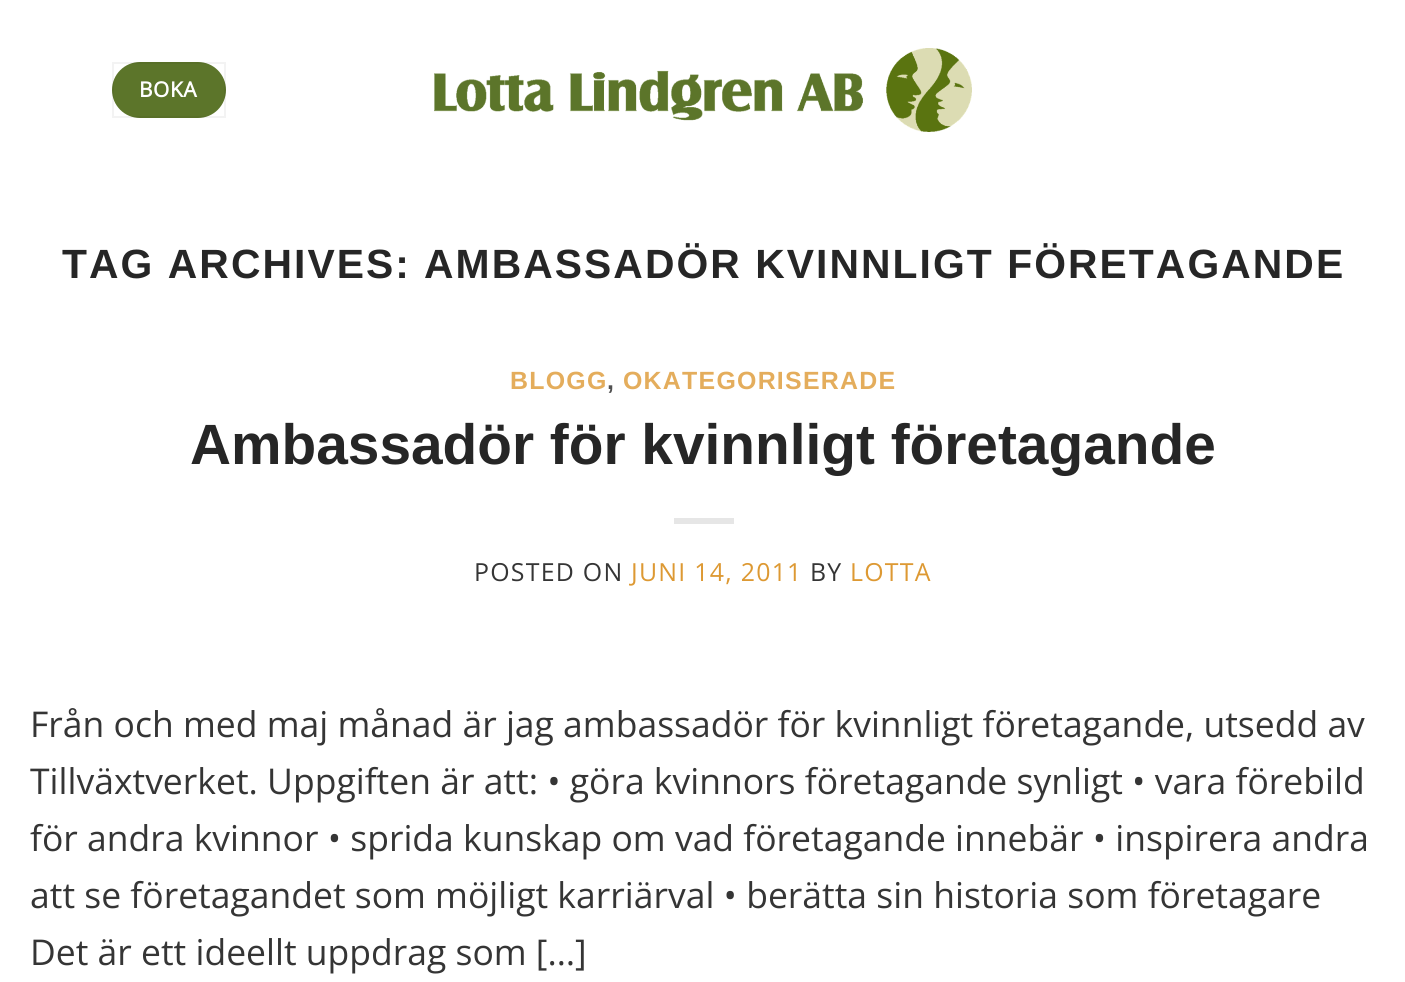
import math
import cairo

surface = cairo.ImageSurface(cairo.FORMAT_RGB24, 1405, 982)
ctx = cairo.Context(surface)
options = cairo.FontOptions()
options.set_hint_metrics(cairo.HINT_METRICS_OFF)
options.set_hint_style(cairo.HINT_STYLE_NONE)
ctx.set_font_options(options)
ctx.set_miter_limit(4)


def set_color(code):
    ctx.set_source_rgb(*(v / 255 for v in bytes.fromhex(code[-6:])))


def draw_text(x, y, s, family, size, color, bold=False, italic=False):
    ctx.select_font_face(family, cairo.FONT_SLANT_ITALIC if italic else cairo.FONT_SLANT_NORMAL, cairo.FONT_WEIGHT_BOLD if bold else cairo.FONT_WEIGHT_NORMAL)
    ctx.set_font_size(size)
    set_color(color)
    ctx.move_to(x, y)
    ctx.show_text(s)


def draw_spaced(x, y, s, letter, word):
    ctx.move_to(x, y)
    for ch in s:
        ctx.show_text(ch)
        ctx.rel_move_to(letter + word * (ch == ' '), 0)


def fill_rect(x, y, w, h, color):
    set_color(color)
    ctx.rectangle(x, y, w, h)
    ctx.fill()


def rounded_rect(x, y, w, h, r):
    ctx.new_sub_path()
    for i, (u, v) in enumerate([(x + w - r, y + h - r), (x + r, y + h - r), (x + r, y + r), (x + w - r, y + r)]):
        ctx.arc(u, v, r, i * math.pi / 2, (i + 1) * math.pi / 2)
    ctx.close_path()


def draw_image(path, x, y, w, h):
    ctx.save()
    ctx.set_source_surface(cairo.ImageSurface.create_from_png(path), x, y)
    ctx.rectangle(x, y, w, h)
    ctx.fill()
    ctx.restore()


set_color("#ffffff")
ctx.paint()
set_color("#5c752a")
rounded_rect(112, 62, 114, 56, 28)
ctx.fill()
ctx.rectangle(113, 63, 112, 54)
ctx.set_source_rgba(0, 0, 0, 0.05)
ctx.stroke()
ctx.select_font_face("Open Sans", cairo.FONT_SLANT_NORMAL, cairo.FONT_WEIGHT_BOLD)
ctx.set_font_size(21)
set_color("#ffffff")
draw_spaced(139, 97, "BOKA", 0.5, 0)
draw_image("assets/img1.png", 434, 48, 538, 84)
ctx.select_font_face("Liberation Sans", cairo.FONT_SLANT_NORMAL, cairo.FONT_WEIGHT_BOLD)
ctx.set_font_size(40.85)
set_color("#262626")
draw_spaced(62, 278, "TAG ARCHIVES:", 2.05, 0)
draw_spaced(424, 278, "AMBASSADÖR KVINNLIGT FÖRETAGANDE", 2.05, 0)
ctx.set_font_size(24.9)
set_color("#e4ad5c")
draw_spaced(510, 389, "BLOGG", 1.25, 0)
set_color("#515151")
draw_spaced(607, 389, ",", 1.25, 0)
set_color("#e4ad5c")
draw_spaced(623, 389, "OKATEGORISERADE", 1.25, 0)
draw_text(190, 464, "Ambassadör för kvinnligt företagande", "Liberation Sans", 56.8, "#262626", bold=True)
fill_rect(674, 518, 60, 6, "#e6e6e6")
ctx.select_font_face("Open Sans")
ctx.set_font_size(24.9)
set_color("#353535")
draw_spaced(474, 581, "POSTED ON", 1.25, 0)
set_color("#dd9933")
draw_spaced(631, 581, "JUNI 14, 2011", 1.25, 0)
set_color("#353535")
draw_spaced(810, 581, "BY", 1.25, 0)
set_color("#dd9933")
draw_spaced(850, 581, "LOTTA", 1.25, 0)
draw_text(30, 737, "Från och med maj månad är jag ambassadör för kvinnligt företagande, utsedd av", "Open Sans", 35.5, "#353535")
draw_text(30, 794, "Tillväxtverket. Uppgiften är att: • göra kvinnors företagande synligt • vara förebild", "Open Sans", 35.5, "#353535")
draw_text(30, 851, "för andra kvinnor • sprida kunskap om vad företagande innebär • inspirera andra", "Open Sans", 35.5, "#353535")
draw_text(30, 908, "att se företagandet som möjligt karriärval • berätta sin historia som företagare", "Open Sans", 35.5, "#353535")
draw_text(30, 965, "Det är ett ideellt uppdrag som […]", "Open Sans", 35.5, "#353535")
surface.write_to_png("output.png")
